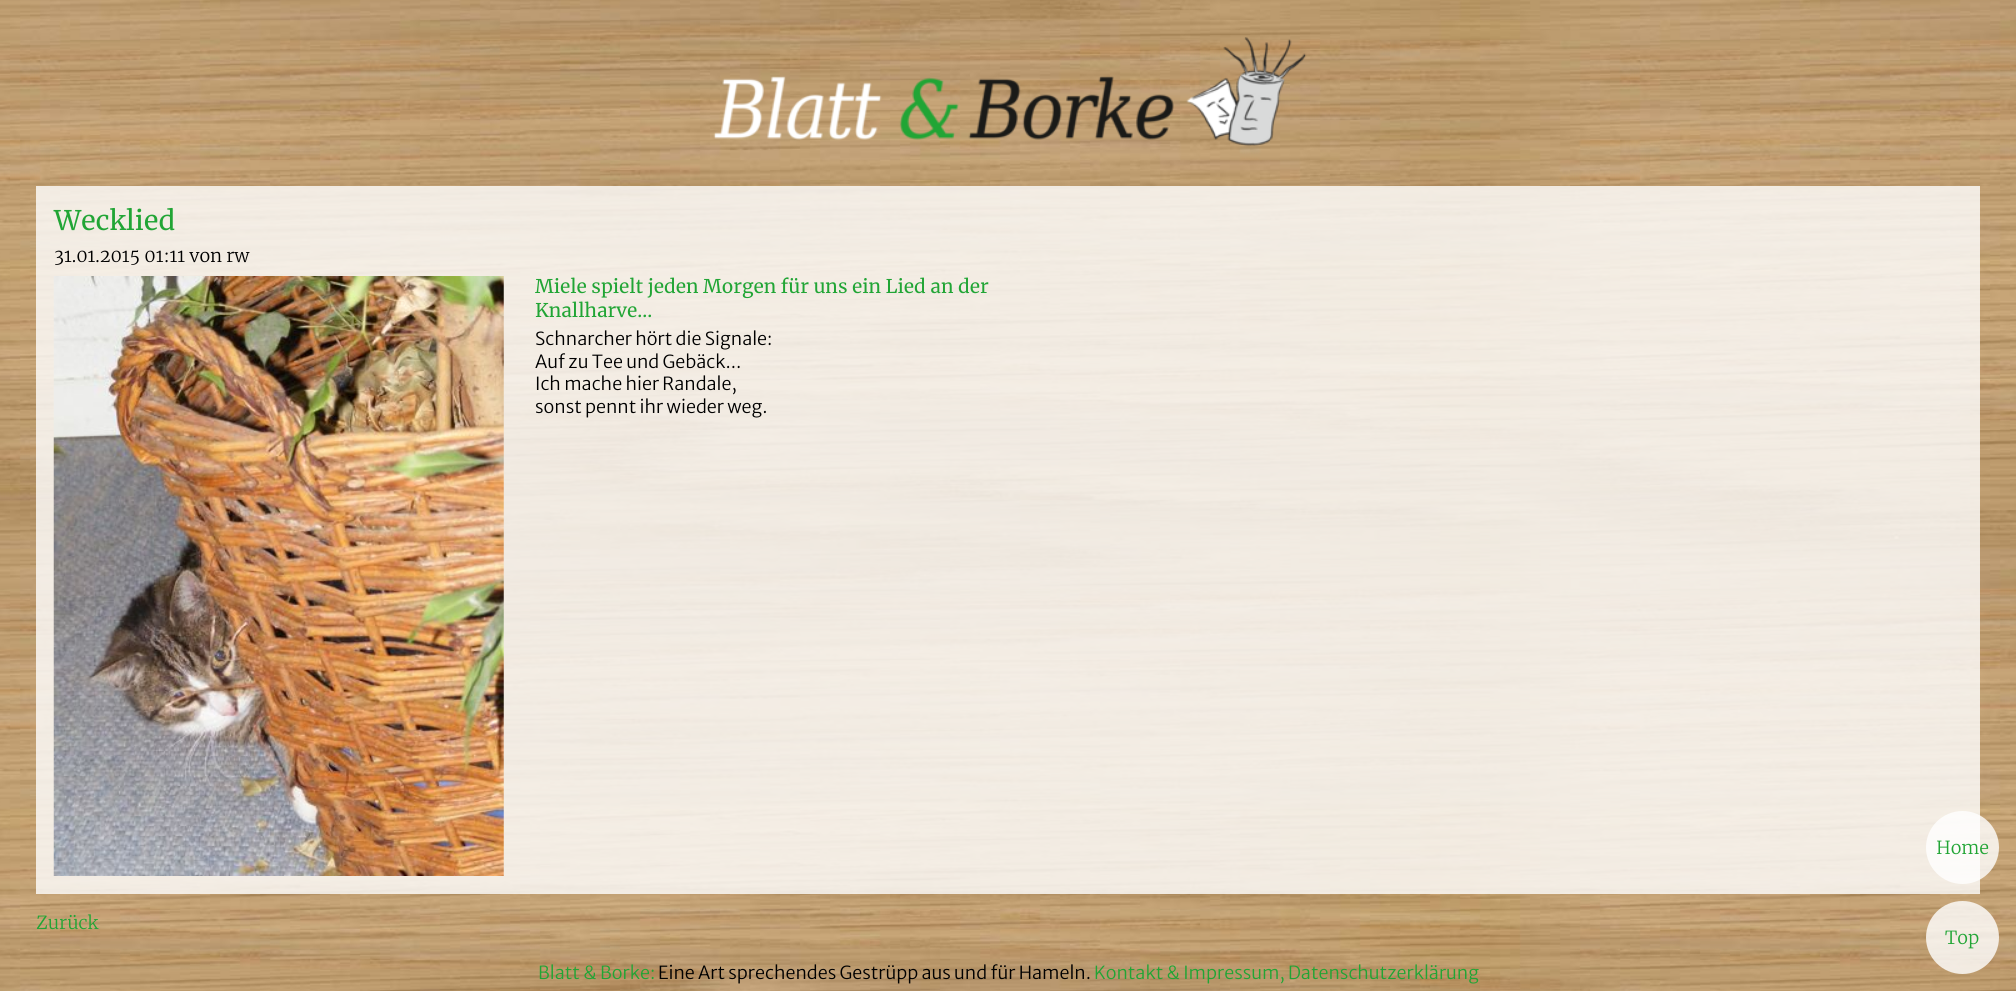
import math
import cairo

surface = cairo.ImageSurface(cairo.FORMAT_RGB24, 2016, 991)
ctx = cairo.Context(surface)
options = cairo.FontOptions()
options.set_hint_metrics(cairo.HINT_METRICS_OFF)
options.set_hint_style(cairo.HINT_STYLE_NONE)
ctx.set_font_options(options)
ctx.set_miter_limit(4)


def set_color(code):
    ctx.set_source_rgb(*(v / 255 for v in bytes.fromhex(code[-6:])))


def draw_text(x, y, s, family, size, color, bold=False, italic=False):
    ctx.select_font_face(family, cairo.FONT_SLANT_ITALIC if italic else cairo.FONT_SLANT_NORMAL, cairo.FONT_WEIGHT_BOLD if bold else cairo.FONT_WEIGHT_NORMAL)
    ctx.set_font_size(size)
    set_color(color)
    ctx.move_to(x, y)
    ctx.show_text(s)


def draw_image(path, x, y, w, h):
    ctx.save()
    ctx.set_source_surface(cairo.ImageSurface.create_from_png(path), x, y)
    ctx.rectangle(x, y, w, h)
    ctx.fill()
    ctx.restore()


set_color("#ffffff")
ctx.paint()
draw_image("assets/img1.png", 0, 0, 2016, 991)
draw_image("assets/img2.png", 713, 37, 594, 110)
ctx.set_source_rgba(1, 1, 1, 0.8)
ctx.rectangle(36, 186, 1944, 708)
ctx.fill()
draw_text(54, 230, "Wecklied", "Merriweather", 27, "#21a535")
draw_text(54, 262, "31.01.2015 01:11 von rw", "Merriweather Light", 18, "#000000")
draw_image("assets/img3.png", 53, 276, 451, 600)
draw_text(535, 293, "Miele spielt jeden Morgen für uns ein Lied an der", "Merriweather", 18.9, "#21a535")
draw_text(535, 317, "Knallharve...", "Merriweather", 18.9, "#21a535")
draw_text(535, 345, "Schnarcher hört die Signale:", "Merriweather Sans Light", 18, "#000000")
draw_text(535, 368, "Auf zu Tee und Gebäck...", "Merriweather Sans Light", 18, "#000000")
draw_text(535, 390, "Ich mache hier Randale,", "Merriweather Sans Light", 18, "#000000")
draw_text(535, 413, "sonst pennt ihr wieder weg.", "Merriweather Sans Light", 18, "#000000")
draw_text(36, 929, "Zurück", "Merriweather Light", 18, "#21a535")
ctx.set_source_rgba(1, 1, 1, 0.8)
ctx.new_path()
ctx.arc(1962.5, 847.5, 36.5, 0, 2 * math.pi)
ctx.fill()
draw_text(1936, 854, "Home", "Merriweather Light", 18, "#21a535")
ctx.set_source_rgba(1, 1, 1, 0.8)
ctx.new_path()
ctx.arc(1962.5, 937.5, 36.5, 0, 2 * math.pi)
ctx.fill()
draw_text(1945, 944, "Top", "Merriweather Light", 18, "#21a535")
draw_text(538, 979, "Blatt & Borke:", "Merriweather Sans Light", 18, "#21a535")
draw_text(658, 979, "Eine Art sprechendes Gestrüpp aus und für Hameln.", "Merriweather Sans Light", 18, "#000000")
draw_text(1094, 979, "Kontakt & Impressum, Datenschutzerklärung", "Merriweather Sans Light", 18, "#21a535")
surface.write_to_png("output.png")
